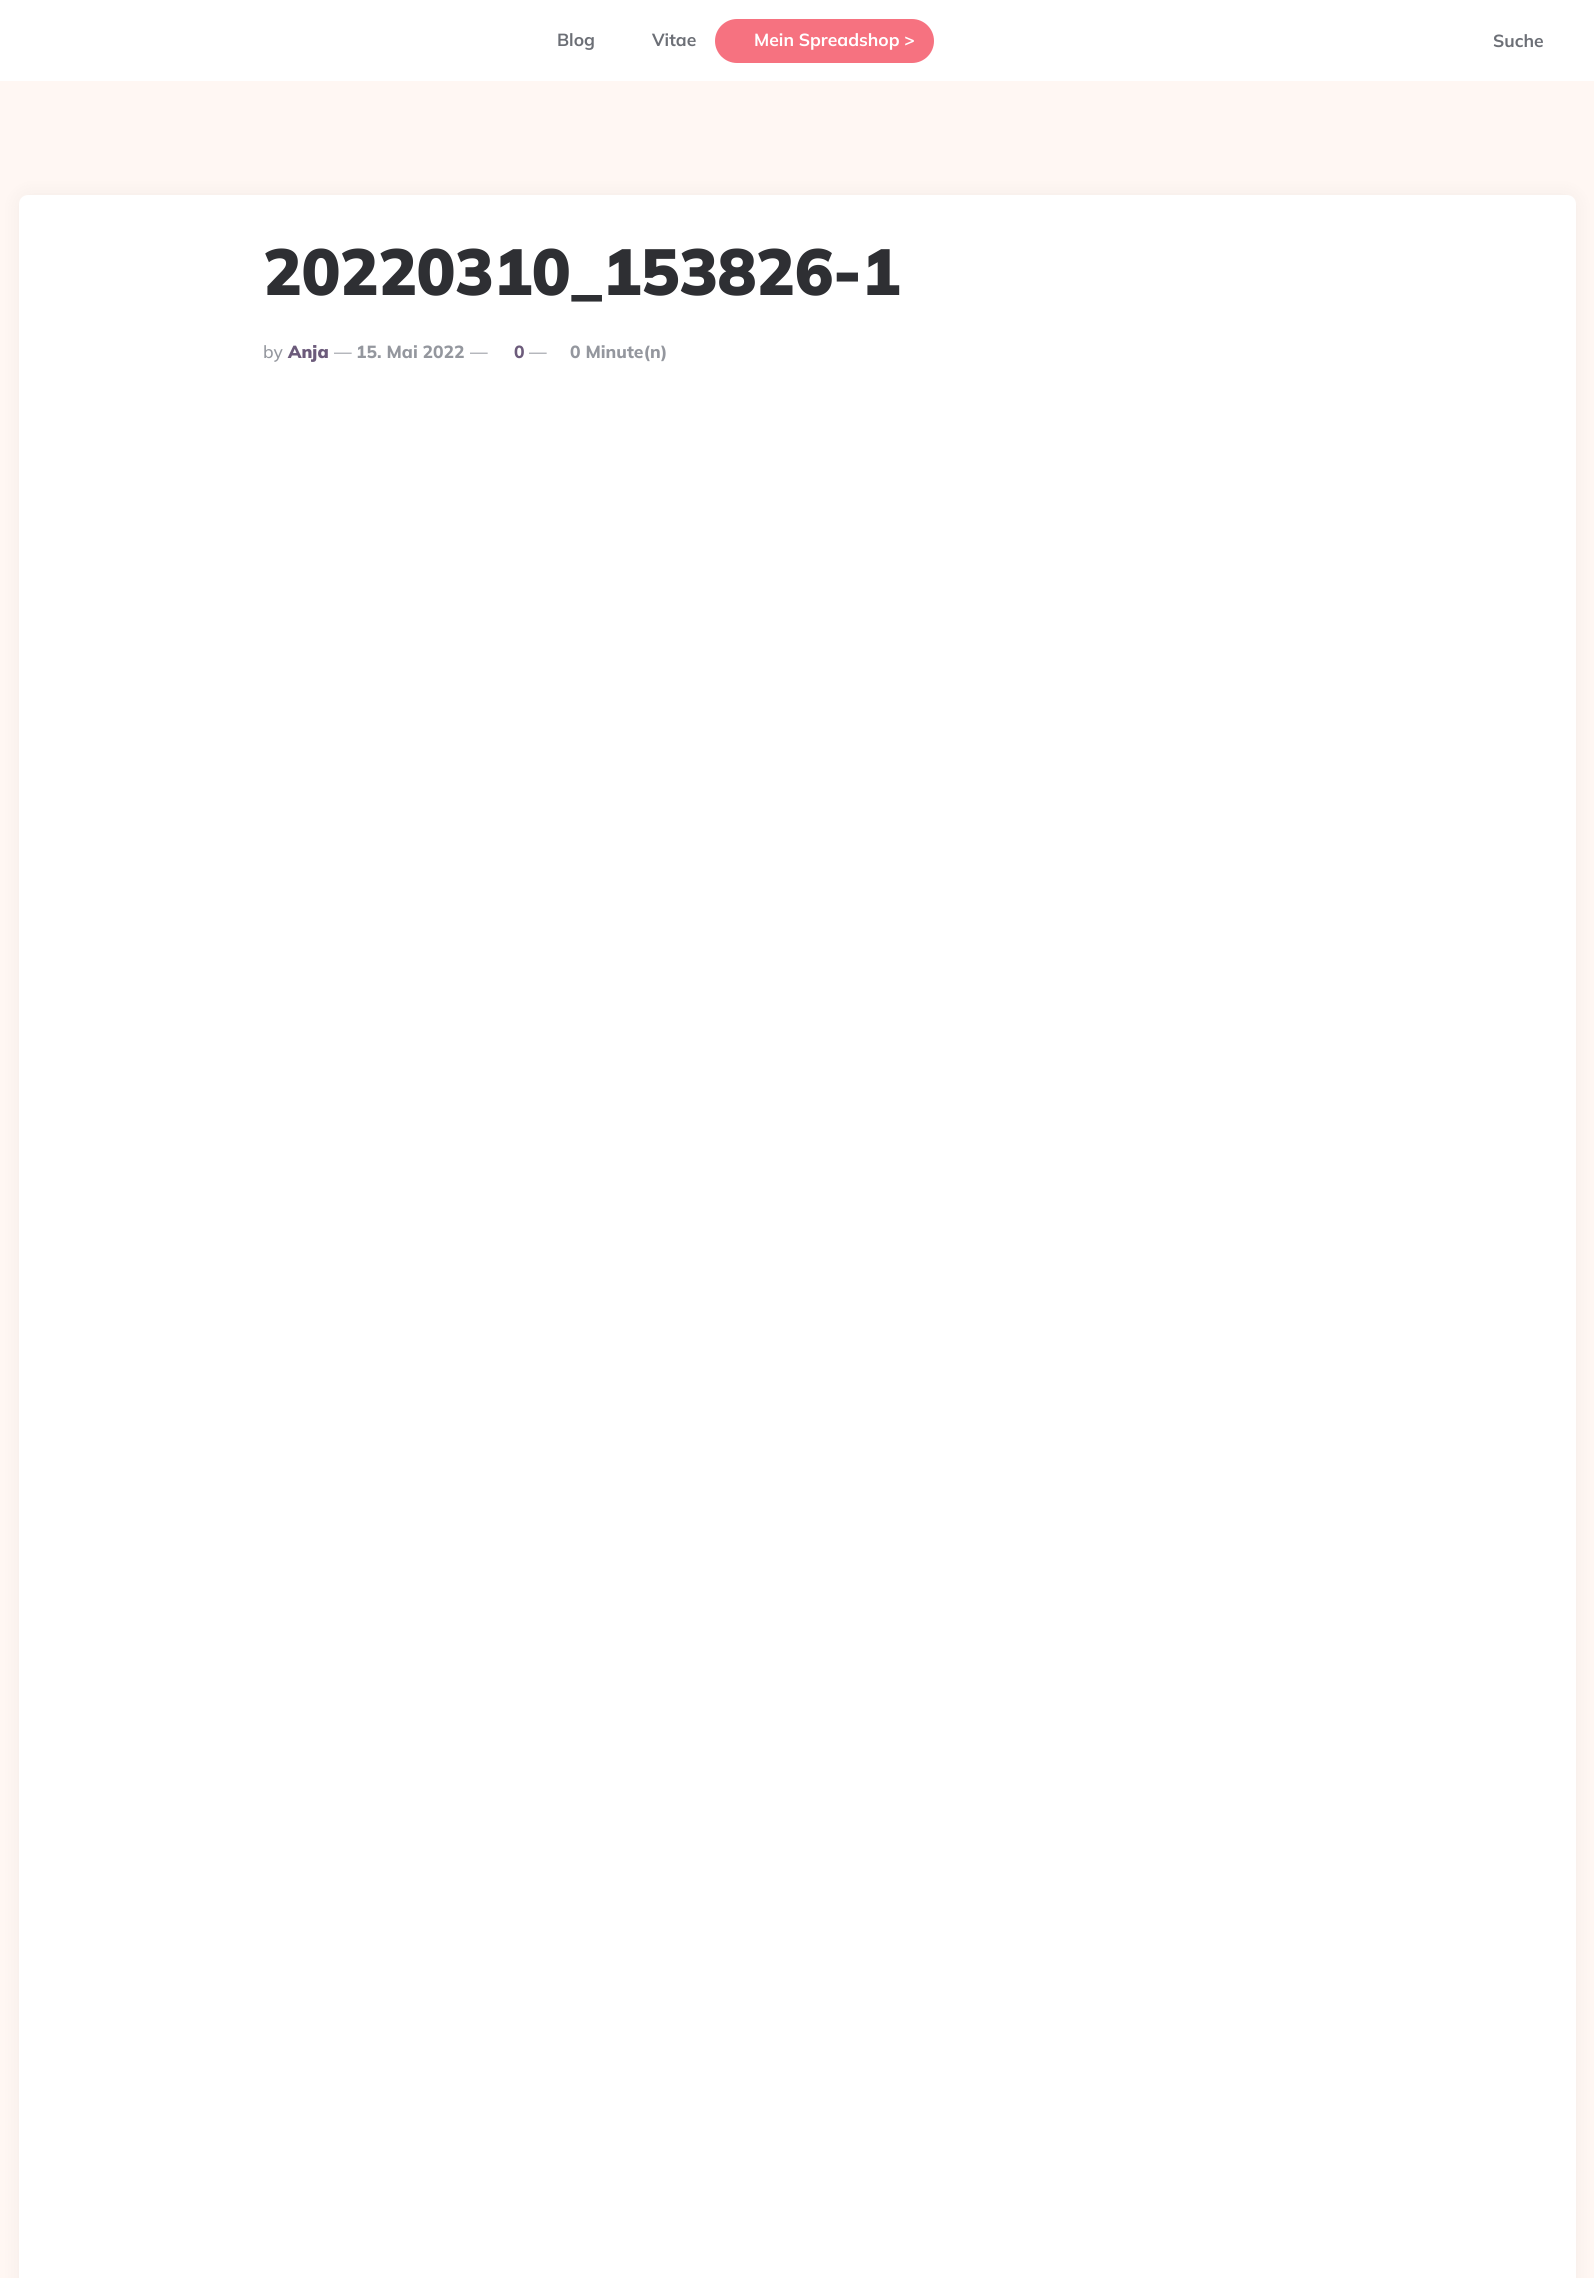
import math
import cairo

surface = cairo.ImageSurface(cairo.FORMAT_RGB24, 1594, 2278)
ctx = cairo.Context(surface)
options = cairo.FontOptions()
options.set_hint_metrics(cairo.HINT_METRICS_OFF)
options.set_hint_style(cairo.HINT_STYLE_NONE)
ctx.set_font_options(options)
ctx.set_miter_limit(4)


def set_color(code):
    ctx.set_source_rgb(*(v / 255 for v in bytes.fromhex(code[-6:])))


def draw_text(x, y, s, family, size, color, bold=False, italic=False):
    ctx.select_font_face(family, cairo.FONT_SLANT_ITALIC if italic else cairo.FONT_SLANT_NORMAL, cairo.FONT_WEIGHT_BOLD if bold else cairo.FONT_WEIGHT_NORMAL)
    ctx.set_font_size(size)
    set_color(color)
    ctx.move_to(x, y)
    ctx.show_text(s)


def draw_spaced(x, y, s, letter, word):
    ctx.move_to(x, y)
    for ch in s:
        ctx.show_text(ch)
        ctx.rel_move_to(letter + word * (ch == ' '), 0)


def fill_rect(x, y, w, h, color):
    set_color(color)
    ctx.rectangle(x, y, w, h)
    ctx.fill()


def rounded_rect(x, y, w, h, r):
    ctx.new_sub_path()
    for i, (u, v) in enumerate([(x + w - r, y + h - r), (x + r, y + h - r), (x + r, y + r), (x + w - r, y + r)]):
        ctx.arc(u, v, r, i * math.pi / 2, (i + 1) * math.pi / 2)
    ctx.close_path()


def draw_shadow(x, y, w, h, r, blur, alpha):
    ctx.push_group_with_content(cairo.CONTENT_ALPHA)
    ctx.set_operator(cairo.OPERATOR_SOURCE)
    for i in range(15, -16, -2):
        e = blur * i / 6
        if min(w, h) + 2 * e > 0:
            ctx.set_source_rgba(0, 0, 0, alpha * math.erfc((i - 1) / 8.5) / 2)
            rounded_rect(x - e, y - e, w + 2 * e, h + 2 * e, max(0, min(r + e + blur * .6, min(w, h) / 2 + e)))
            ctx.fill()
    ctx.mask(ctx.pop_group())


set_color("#fff7f3")
ctx.paint()
fill_rect(0, 0, 1594, 81, "#ffffff")
draw_text(557, 46, "Blog", "Mulish", 17.5, "#6c6f76", bold=True)
draw_text(652, 46, "Vitae", "Mulish", 17.5, "#6c6f76", bold=True)
set_color("#f67280")
rounded_rect(715, 19, 219, 44, 22)
ctx.fill()
draw_text(754, 46, "Mein Spreadshop >", "Mulish", 17.5, "#ffffff", bold=True)
draw_text(1493, 47, "Suche", "Mulish", 17.5, "#6c6f76", bold=True)
set_color("#000000")
draw_shadow(19, 195, 1557, 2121, 9, 9.5, 0.05)
set_color("#ffffff")
ctx.new_path()
ctx.move_to(28, 195)
ctx.line_to(1567, 195)
ctx.curve_to(1572, 195, 1576, 199, 1576, 204)
ctx.line_to(1576, 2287)
ctx.line_to(19, 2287)
ctx.line_to(19, 204)
ctx.curve_to(19, 199, 23, 195, 28, 195)
ctx.close_path()
ctx.fill()
ctx.select_font_face("Mulish Black")
ctx.set_font_size(65)
set_color("#2e2f33")
draw_spaced(263, 295, "20220310_153826-1", -0.6, 0)
draw_text(263, 358, "by", "Mulish Medium", 17.5, "#94979e")
draw_text(288, 358, "Anja", "Mulish Black", 17.5, "#6c5b7b")
draw_text(334, 358, "―", "Mulish Medium", 17.5, "#94979e")
draw_text(356, 358, "15. Mai 2022", "Mulish ExtraBold", 17.5, "#94979e")
draw_text(470, 358, "―", "Mulish Medium", 17.5, "#94979e")
draw_text(514, 358, "0", "Mulish ExtraBold", 17.5, "#6c5b7b")
draw_text(529, 358, "―", "Mulish Medium", 17.5, "#94979e")
draw_text(570, 358, "0 Minute(n)", "Mulish ExtraBold", 17.5, "#94979e")
surface.write_to_png("output.png")
